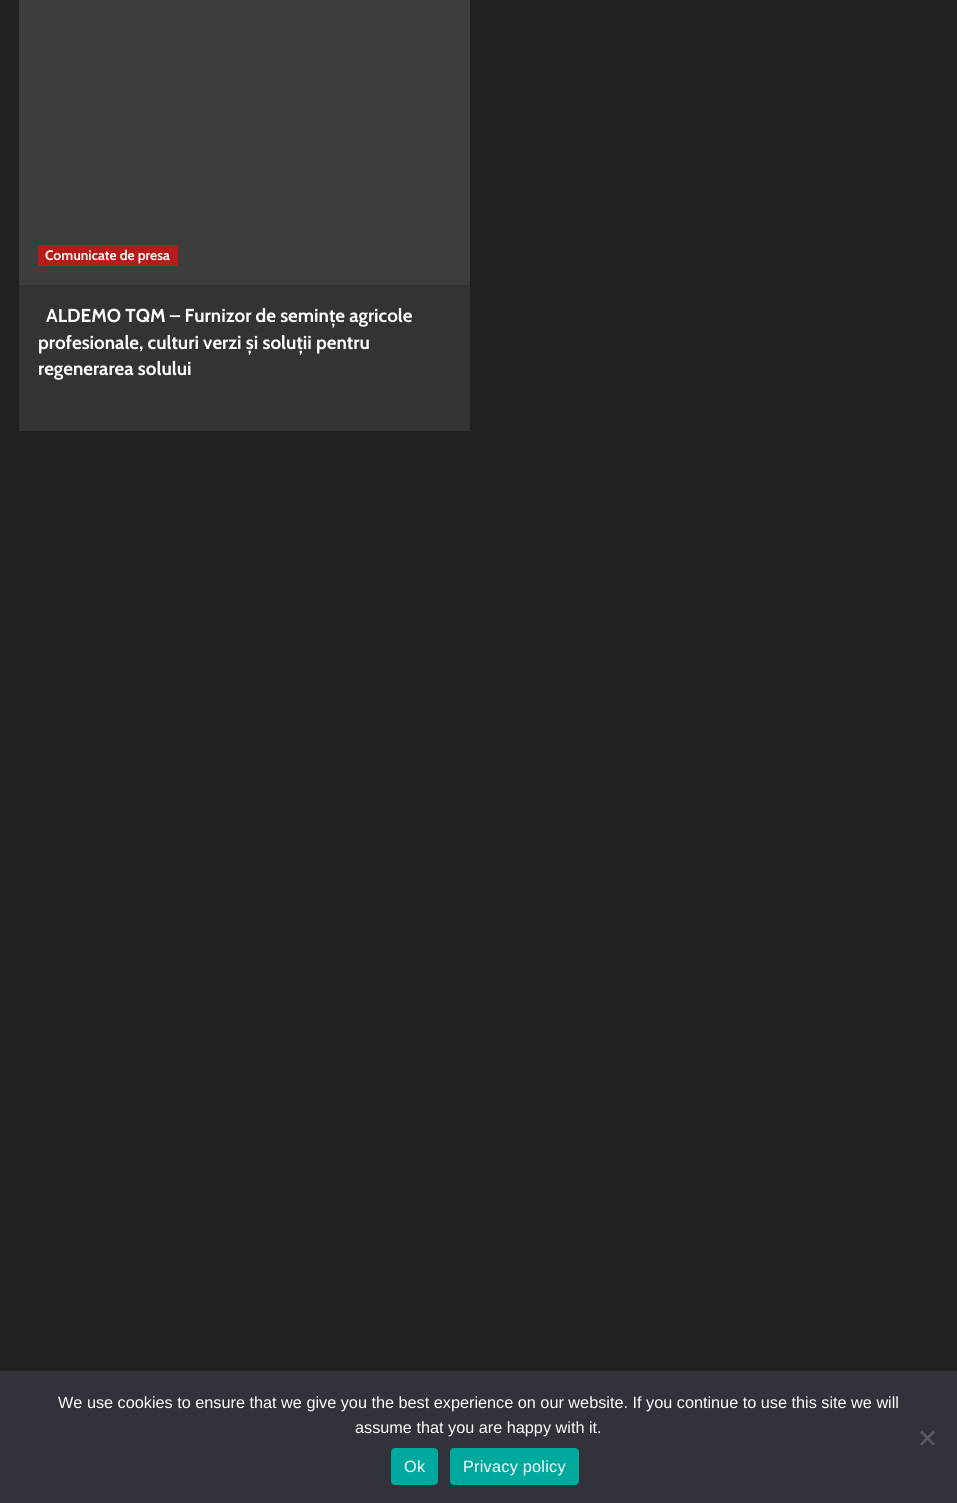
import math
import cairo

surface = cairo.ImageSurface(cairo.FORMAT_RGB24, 957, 1503)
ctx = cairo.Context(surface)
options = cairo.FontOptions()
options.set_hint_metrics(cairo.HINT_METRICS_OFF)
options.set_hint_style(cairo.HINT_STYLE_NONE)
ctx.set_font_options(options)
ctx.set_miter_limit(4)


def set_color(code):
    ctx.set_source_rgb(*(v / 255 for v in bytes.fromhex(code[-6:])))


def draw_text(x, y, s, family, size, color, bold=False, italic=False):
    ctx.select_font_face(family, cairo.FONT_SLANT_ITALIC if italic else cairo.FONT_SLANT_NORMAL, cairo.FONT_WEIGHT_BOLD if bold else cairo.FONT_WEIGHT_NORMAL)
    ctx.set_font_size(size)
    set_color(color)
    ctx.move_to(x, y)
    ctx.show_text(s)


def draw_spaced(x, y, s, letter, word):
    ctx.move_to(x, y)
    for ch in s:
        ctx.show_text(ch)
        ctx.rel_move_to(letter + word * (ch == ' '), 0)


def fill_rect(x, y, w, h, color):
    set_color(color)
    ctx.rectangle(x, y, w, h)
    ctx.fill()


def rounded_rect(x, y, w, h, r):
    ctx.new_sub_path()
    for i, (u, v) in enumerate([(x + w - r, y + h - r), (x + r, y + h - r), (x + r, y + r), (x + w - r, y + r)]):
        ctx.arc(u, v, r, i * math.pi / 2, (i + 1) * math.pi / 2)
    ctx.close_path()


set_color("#212121")
ctx.paint()
fill_rect(19, 285, 451, 146, "#333333")
fill_rect(19, 0, 451, 285, "#3d3d3d")
fill_rect(38, 245, 140, 21, "#b61a1a")
draw_text(45, 260, "Comunicate de presa", "Cabin", 13.75, "#f7f7f7", bold=True)
draw_text(46, 322, "ALDEMO TQM – Furnizor de semințe agricole", "Cabin", 18.75, "#ffffff", bold=True)
draw_text(38, 349, "profesionale, culturi verzi și soluții pentru", "Cabin", 18.75, "#ffffff", bold=True)
draw_text(38, 375, "regenerarea solului", "Cabin", 18.75, "#ffffff", bold=True)
fill_rect(0, 1371, 957, 132, "#32323a")
draw_text(58, 1408, "We use cookies to ensure that we give you the best experience on our website. If you continue to use this site we will", "Liberation Sans", 16.25, "#ffffff")
draw_text(355, 1433, "assume that you are happy with it.", "Liberation Sans", 16.25, "#ffffff")
set_color("#59595d")
ctx.new_path()
ctx.move_to(933, 1430.5)
ctx.line_to(935, 1432.5)
ctx.line_to(922, 1445.5)
ctx.line_to(920, 1444)
ctx.close_path()
ctx.fill()
ctx.new_path()
ctx.move_to(920, 1432.5)
ctx.line_to(922, 1430.5)
ctx.line_to(935, 1444)
ctx.line_to(933, 1445.5)
ctx.close_path()
ctx.fill()
set_color("#00a99d")
rounded_rect(391, 1448, 47, 37, 4)
ctx.fill()
set_color("#ffffff")
draw_spaced(404, 1472, "Ok", 0.25, 0)
set_color("#00a99d")
rounded_rect(450, 1448, 129, 37, 4)
ctx.fill()
set_color("#ffffff")
draw_spaced(463, 1472, "Privacy policy", 0.25, 0)
surface.write_to_png("output.png")
